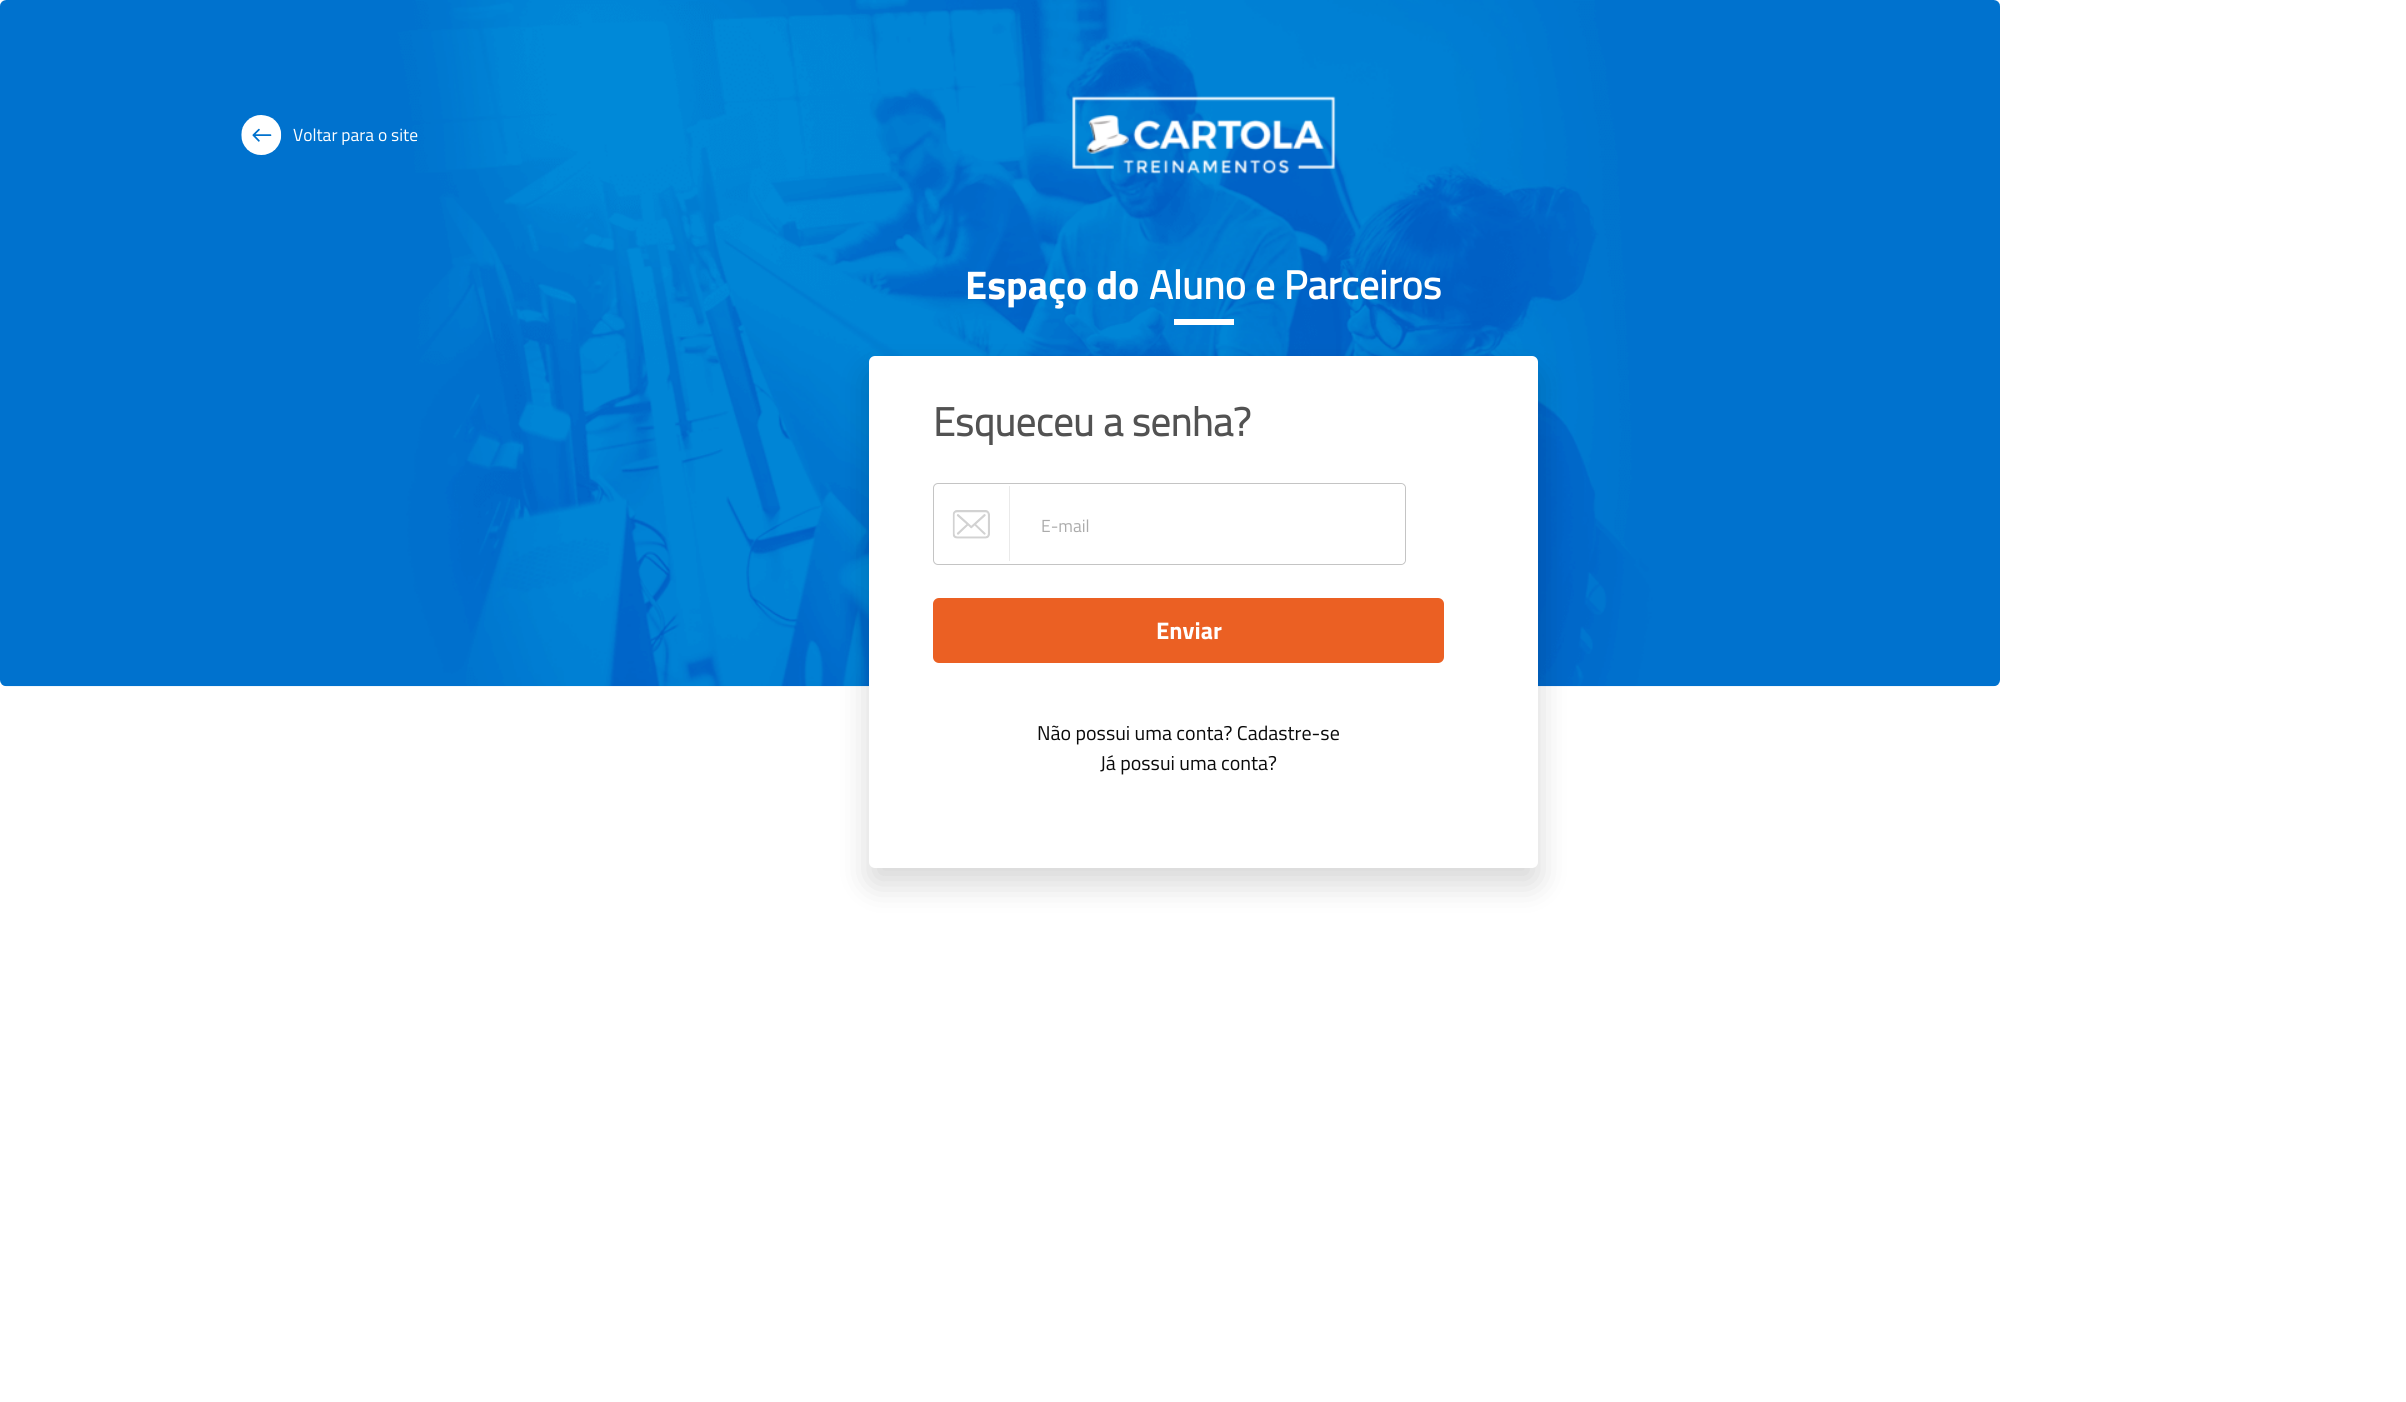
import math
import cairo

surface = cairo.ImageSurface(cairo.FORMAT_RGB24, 2406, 1402)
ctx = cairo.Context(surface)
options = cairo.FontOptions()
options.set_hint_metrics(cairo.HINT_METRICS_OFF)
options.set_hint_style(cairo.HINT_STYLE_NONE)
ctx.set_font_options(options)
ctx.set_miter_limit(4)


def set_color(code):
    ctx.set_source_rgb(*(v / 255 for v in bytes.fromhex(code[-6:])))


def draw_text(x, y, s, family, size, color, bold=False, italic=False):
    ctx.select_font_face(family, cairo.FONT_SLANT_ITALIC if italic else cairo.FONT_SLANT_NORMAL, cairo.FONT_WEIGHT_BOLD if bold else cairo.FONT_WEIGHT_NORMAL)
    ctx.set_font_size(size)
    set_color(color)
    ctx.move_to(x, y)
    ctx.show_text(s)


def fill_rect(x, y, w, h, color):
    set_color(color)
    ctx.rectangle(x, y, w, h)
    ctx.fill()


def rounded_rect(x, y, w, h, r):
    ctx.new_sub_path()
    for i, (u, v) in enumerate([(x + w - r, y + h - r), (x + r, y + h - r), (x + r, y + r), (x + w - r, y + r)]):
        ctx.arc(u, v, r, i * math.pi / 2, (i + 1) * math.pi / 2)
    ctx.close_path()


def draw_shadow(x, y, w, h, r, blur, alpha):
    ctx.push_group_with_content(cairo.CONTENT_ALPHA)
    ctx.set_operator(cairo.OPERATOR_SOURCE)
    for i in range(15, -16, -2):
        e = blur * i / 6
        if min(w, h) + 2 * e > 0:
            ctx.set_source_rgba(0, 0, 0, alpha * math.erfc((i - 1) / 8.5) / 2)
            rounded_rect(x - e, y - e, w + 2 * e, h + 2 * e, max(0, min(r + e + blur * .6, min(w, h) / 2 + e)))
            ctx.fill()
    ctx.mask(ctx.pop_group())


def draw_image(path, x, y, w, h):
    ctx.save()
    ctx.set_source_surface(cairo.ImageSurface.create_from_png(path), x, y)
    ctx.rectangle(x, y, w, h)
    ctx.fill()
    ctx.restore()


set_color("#ffffff")
ctx.paint()
draw_image("assets/img1.png", 0, 0, 2000, 687)
draw_image("assets/img2.png", 241, 115, 41, 40)
draw_text(293, 141, "Voltar para o site", "Titillium Web", 17.5, "#ffffff")
draw_image("assets/img3.png", 1072, 96, 264, 78)
draw_text(965, 299, "Espaço do", "Titillium Web", 40, "#ffffff", bold=True)
draw_text(1149, 299, "Aluno e Parceiros", "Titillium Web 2", 40, "#ffffff", bold=True)
fill_rect(1174, 319, 60, 6, "#ffffff")
set_color("#000000")
draw_shadow(869, 373, 669, 511, 6, 16, 0.16)
set_color("#ffffff")
rounded_rect(869, 356, 669, 512, 6)
ctx.fill()
draw_text(933, 436, "Esqueceu a senha?", "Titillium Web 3", 40, "#525252", bold=True)
rounded_rect(933.5, 483.5, 472, 81, 4.5)
set_color("#c4c4c4")
ctx.set_line_width(1)
ctx.stroke()
draw_image("assets/img4.png", 952, 510, 38, 29)
set_color("#ffffff")
rounded_rect(1009, 484, 396, 80, 5)
ctx.fill()
fill_rect(1009, 486, 1, 75, "#eaeaea")
draw_text(1041, 532, "E-mail", "Titillium Web", 17.5, "#ababab")
set_color("#eb6023")
rounded_rect(933, 598, 511, 65, 6)
ctx.fill()
draw_text(1156, 639, "Enviar", "Titillium Web", 24, "#ffffff", bold=True)
draw_text(1037, 740, "Não possui uma conta? Cadastre-se", "Titillium Web", 20, "#0a0a0a")
draw_text(1100, 770, "Já possui uma conta?", "Titillium Web", 20, "#0a0a0a")
surface.write_to_png("output.png")
